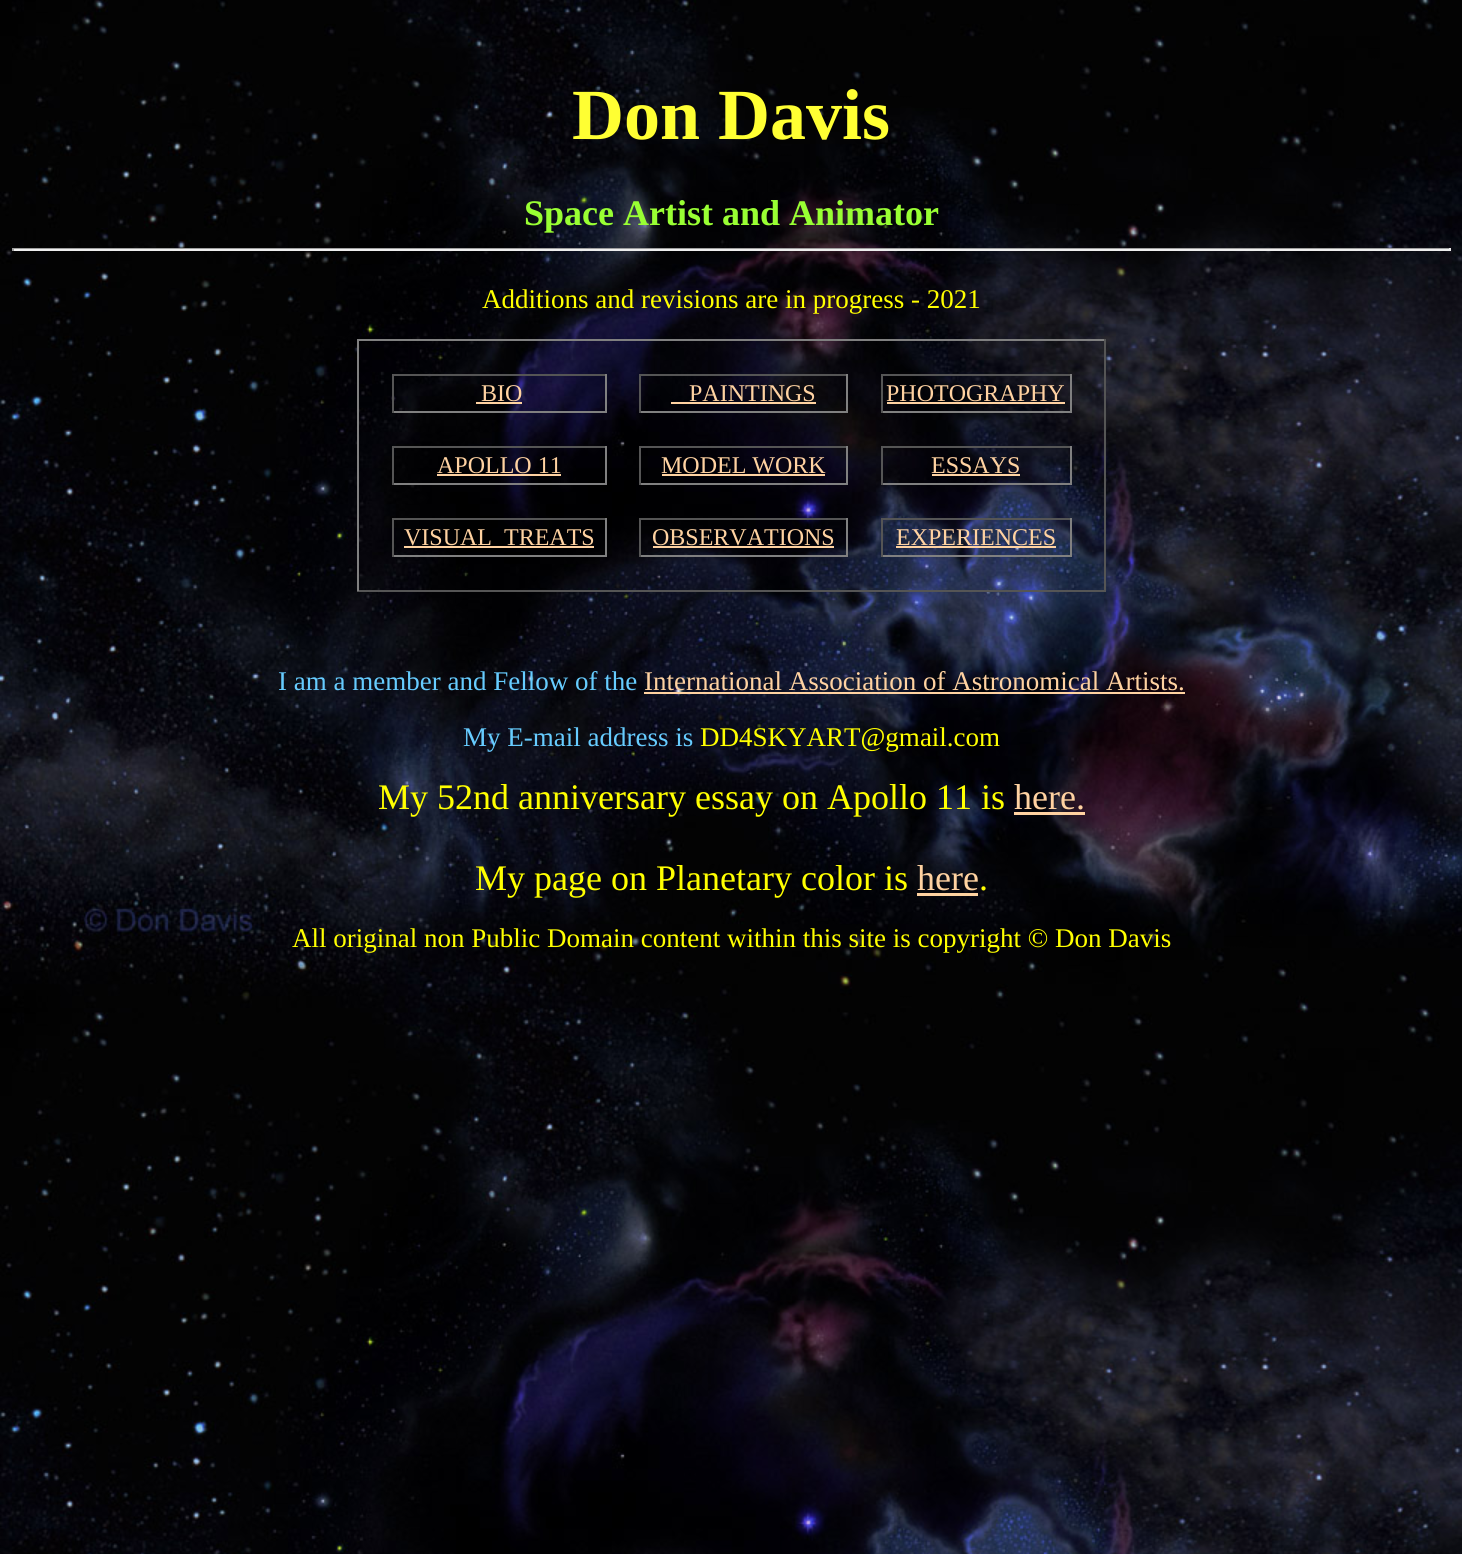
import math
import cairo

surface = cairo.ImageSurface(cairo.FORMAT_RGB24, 1462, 1554)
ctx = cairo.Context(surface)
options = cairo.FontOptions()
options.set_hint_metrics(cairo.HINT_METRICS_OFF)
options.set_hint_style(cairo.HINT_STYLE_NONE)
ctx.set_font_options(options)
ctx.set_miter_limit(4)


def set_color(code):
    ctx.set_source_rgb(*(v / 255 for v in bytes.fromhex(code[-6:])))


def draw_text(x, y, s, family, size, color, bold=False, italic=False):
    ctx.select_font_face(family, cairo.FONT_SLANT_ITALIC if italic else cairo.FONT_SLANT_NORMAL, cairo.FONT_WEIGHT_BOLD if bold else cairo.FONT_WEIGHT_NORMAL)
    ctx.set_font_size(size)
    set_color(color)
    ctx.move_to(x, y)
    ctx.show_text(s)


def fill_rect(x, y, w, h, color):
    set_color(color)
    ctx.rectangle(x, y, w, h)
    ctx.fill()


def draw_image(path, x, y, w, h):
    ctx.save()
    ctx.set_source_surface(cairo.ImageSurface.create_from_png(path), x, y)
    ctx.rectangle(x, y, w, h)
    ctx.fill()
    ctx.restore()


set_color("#ffffff")
ctx.paint()
draw_image("assets/img1.png", 0, 0, 1462, 1554)
draw_text(572, 139, "Don Davis", "Liberation Serif", 72, "#ffff33", bold=True)
draw_text(524, 225, "Space Artist and Animator", "Liberation Serif", 36, "#99ff33", bold=True)
fill_rect(12, 248, 1439, 1, "#9f9f9f")
fill_rect(1449, 248, 2, 3, "#eeeeee")
fill_rect(12, 249, 1439, 2, "#eeeeee")
fill_rect(12, 248, 2, 3, "#9f9f9f")
draw_text(482, 308, "Additions and revisions are in progress - 2021", "Liberation Serif", 27, "#ffff00")
fill_rect(357, 339, 749, 2, "#808080")
fill_rect(1104, 339, 2, 252, "#555555")
fill_rect(357, 590, 749, 2, "#555555")
fill_rect(357, 339, 2, 252, "#808080")
fill_rect(392, 374, 214, 2, "#555555")
fill_rect(605, 374, 2, 39, "#808080")
fill_rect(392, 411, 214, 2, "#808080")
fill_rect(392, 374, 2, 39, "#555555")
draw_text(481, 401, "BIO", "Liberation Serif", 24, "#ffd2a1")
fill_rect(476, 402, 46, 2, "#ffd2a1")
fill_rect(639, 374, 209, 2, "#555555")
fill_rect(846, 374, 2, 39, "#808080")
fill_rect(639, 411, 209, 2, "#808080")
fill_rect(639, 374, 2, 39, "#555555")
draw_text(689, 401, "PAINTINGS", "Liberation Serif", 24, "#ffd2a1")
fill_rect(671, 402, 145, 2, "#ffd2a1")
fill_rect(881, 374, 190, 2, "#555555")
fill_rect(1070, 374, 2, 39, "#808080")
fill_rect(881, 411, 190, 2, "#808080")
fill_rect(881, 374, 2, 39, "#555555")
draw_text(886, 401, "PHOTOGRAPHY", "Liberation Serif", 24, "#ffd2a1")
fill_rect(887, 402, 178, 2, "#ffd2a1")
fill_rect(392, 446, 214, 2, "#555555")
fill_rect(605, 446, 2, 39, "#808080")
fill_rect(392, 483, 214, 2, "#808080")
fill_rect(392, 446, 2, 39, "#555555")
draw_text(437, 473, "APOLLO 11", "Liberation Serif", 24, "#ffd2a1")
fill_rect(437, 474, 124, 2, "#ffd2a1")
fill_rect(639, 446, 209, 2, "#555555")
fill_rect(846, 446, 2, 39, "#808080")
fill_rect(639, 483, 209, 2, "#808080")
fill_rect(639, 446, 2, 39, "#555555")
draw_text(661, 473, "MODEL WORK", "Liberation Serif", 24, "#ffd2a1")
fill_rect(662, 474, 163, 2, "#ffd2a1")
fill_rect(881, 446, 190, 2, "#555555")
fill_rect(1070, 446, 2, 39, "#808080")
fill_rect(881, 483, 190, 2, "#808080")
fill_rect(881, 446, 2, 39, "#555555")
draw_text(931, 473, "ESSAYS", "Liberation Serif", 24, "#ffd2a1")
fill_rect(932, 474, 88, 2, "#ffd2a1")
fill_rect(392, 518, 214, 2, "#555555")
fill_rect(605, 518, 2, 39, "#808080")
fill_rect(392, 555, 214, 2, "#808080")
fill_rect(392, 518, 2, 39, "#555555")
draw_text(404, 545, "VISUAL  TREATS", "Liberation Serif", 24, "#ffd2a1")
fill_rect(404, 546, 190, 2, "#ffd2a1")
fill_rect(639, 518, 209, 2, "#555555")
fill_rect(846, 518, 2, 39, "#808080")
fill_rect(639, 555, 209, 2, "#808080")
fill_rect(639, 518, 2, 39, "#555555")
draw_text(652, 545, "OBSERVATIONS", "Liberation Serif", 24, "#ffd2a1")
fill_rect(653, 546, 181, 2, "#ffd2a1")
fill_rect(881, 518, 190, 2, "#555555")
fill_rect(1070, 518, 2, 39, "#808080")
fill_rect(881, 555, 190, 2, "#808080")
fill_rect(881, 518, 2, 39, "#555555")
draw_text(896, 545, "EXPERIENCES", "Liberation Serif", 24, "#ffd2a1")
fill_rect(896, 546, 160, 2, "#ffd2a1")
draw_text(278, 690, "I am a member and Fellow of the", "Liberation Serif", 27, "#66ccff")
draw_text(644, 690, "International Association of Astronomical Artists.", "Liberation Serif", 27, "#ffd2a1")
fill_rect(644, 692, 541, 2, "#ffd2a1")
draw_text(463, 746, "My E-mail address is", "Liberation Serif", 27, "#66ccff")
draw_text(700, 746, "DD4SKYART@gmail.com", "Liberation Serif", 27, "#ffff00")
draw_text(378, 809, "My 52nd anniversary essay on Apollo 11 is", "Liberation Serif", 36, "#ffff00")
draw_text(1014, 809, "here.", "Liberation Serif", 36, "#ffd2a1")
fill_rect(1014, 812, 71, 3, "#ffd2a1")
draw_text(475, 890, "My page on Planetary color is", "Liberation Serif", 36, "#ffff00")
draw_text(917, 890, "here", "Liberation Serif", 36, "#ffd2a1")
draw_text(979, 890, ".", "Liberation Serif", 36, "#ffff00")
fill_rect(917, 893, 61, 3, "#ffd2a1")
draw_text(292, 947, "All original non Public Domain content within this site is copyright © Don Davis", "Liberation Serif", 27, "#ffff00")
surface.write_to_png("output.png")
